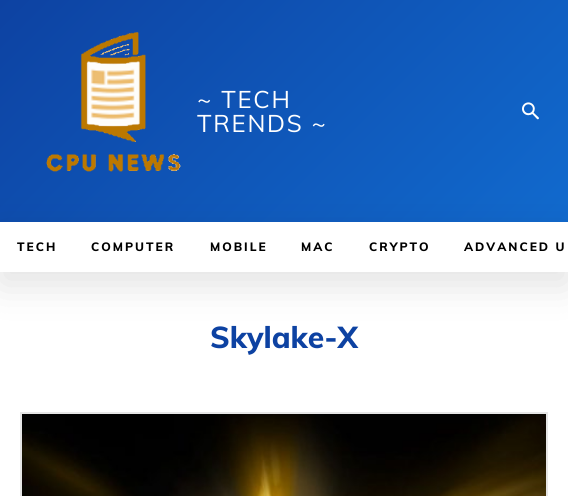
import math
import cairo

surface = cairo.ImageSurface(cairo.FORMAT_RGB24, 568, 496)
ctx = cairo.Context(surface)
options = cairo.FontOptions()
options.set_hint_metrics(cairo.HINT_METRICS_OFF)
options.set_hint_style(cairo.HINT_STYLE_NONE)
ctx.set_font_options(options)
ctx.set_miter_limit(4)


def set_color(code):
    ctx.set_source_rgb(*(v / 255 for v in bytes.fromhex(code[-6:])))


def draw_text(x, y, s, family, size, color, bold=False, italic=False):
    ctx.select_font_face(family, cairo.FONT_SLANT_ITALIC if italic else cairo.FONT_SLANT_NORMAL, cairo.FONT_WEIGHT_BOLD if bold else cairo.FONT_WEIGHT_NORMAL)
    ctx.set_font_size(size)
    set_color(color)
    ctx.move_to(x, y)
    ctx.show_text(s)


def draw_spaced(x, y, s, letter, word):
    ctx.move_to(x, y)
    for ch in s:
        ctx.show_text(ch)
        ctx.rel_move_to(letter + word * (ch == ' '), 0)


def rounded_rect(x, y, w, h, r):
    ctx.new_sub_path()
    for i, (u, v) in enumerate([(x + w - r, y + h - r), (x + r, y + h - r), (x + r, y + r), (x + w - r, y + r)]):
        ctx.arc(u, v, r, i * math.pi / 2, (i + 1) * math.pi / 2)
    ctx.close_path()


def draw_shadow(x, y, w, h, r, blur, alpha):
    ctx.push_group_with_content(cairo.CONTENT_ALPHA)
    ctx.set_operator(cairo.OPERATOR_SOURCE)
    for i in range(15, -16, -2):
        e = blur * i / 6
        if min(w, h) + 2 * e > 0:
            ctx.set_source_rgba(0, 0, 0, alpha * math.erfc((i - 1) / 8.5) / 2)
            rounded_rect(x - e, y - e, w + 2 * e, h + 2 * e, max(0, min(r + e + blur * .6, min(w, h) / 2 + e)))
            ctx.fill()
    ctx.mask(ctx.pop_group())


def draw_image(path, x, y, w, h):
    ctx.save()
    ctx.set_source_surface(cairo.ImageSurface.create_from_png(path), x, y)
    ctx.rectangle(x, y, w, h)
    ctx.fill()
    ctx.restore()


set_color("#ffffff")
ctx.paint()
gradient = cairo.LinearGradient(482, 309, 87, -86)
gradient.add_color_stop_rgba(0, 0.067, 0.416, 0.808, 1)
gradient.add_color_stop_rgba(1, 0.051, 0.259, 0.635, 1)
ctx.set_source(gradient)
ctx.rectangle(0, 0, 568, 222)
ctx.fill()
draw_image("assets/img1.png", 46, 32, 135, 140)
ctx.select_font_face("Muli")
ctx.set_font_size(24)
set_color("#ffffff")
draw_spaced(197, 108, "~ TECH", 1.75, 0)
draw_spaced(197, 132, "TRENDS ~", 1.75, 0)
draw_image("assets/img2.png", 522, 102, 17, 18)
ctx.save()
ctx.set_fill_rule(cairo.FILL_RULE_EVEN_ODD)
ctx.new_path()
ctx.move_to(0, 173)
ctx.line_to(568, 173)
ctx.line_to(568, 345)
ctx.line_to(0, 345)
ctx.close_path()
ctx.move_to(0, 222)
ctx.line_to(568, 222)
ctx.line_to(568, 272)
ctx.line_to(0, 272)
ctx.close_path()
ctx.clip()
set_color("#000000")
draw_shadow(0, 234, 568, 50, 0, 20, 0.12)
ctx.restore()
ctx.select_font_face("Muli ExtraBold")
ctx.set_font_size(12)
set_color("#000000")
draw_spaced(17, 251, "TECH", 2, 0)
draw_spaced(91, 251, "COMPUTER", 2, 0)
draw_spaced(210, 251, "MOBILE", 2, 0)
draw_spaced(301, 251, "MAC", 2, 0)
draw_spaced(369, 251, "CRYPTO", 2, 0)
draw_spaced(464, 251, "ADVANCED U", 2, 0)
draw_text(210, 348, "Skylake-X", "Muli ExtraBold", 30, "#0d42a2")
ctx.rectangle(21, 413, 526, 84)
set_color("#e6e6e6")
ctx.stroke()
draw_image("assets/img3.png", 22, 414, 524, 82)
surface.write_to_png("output.png")
